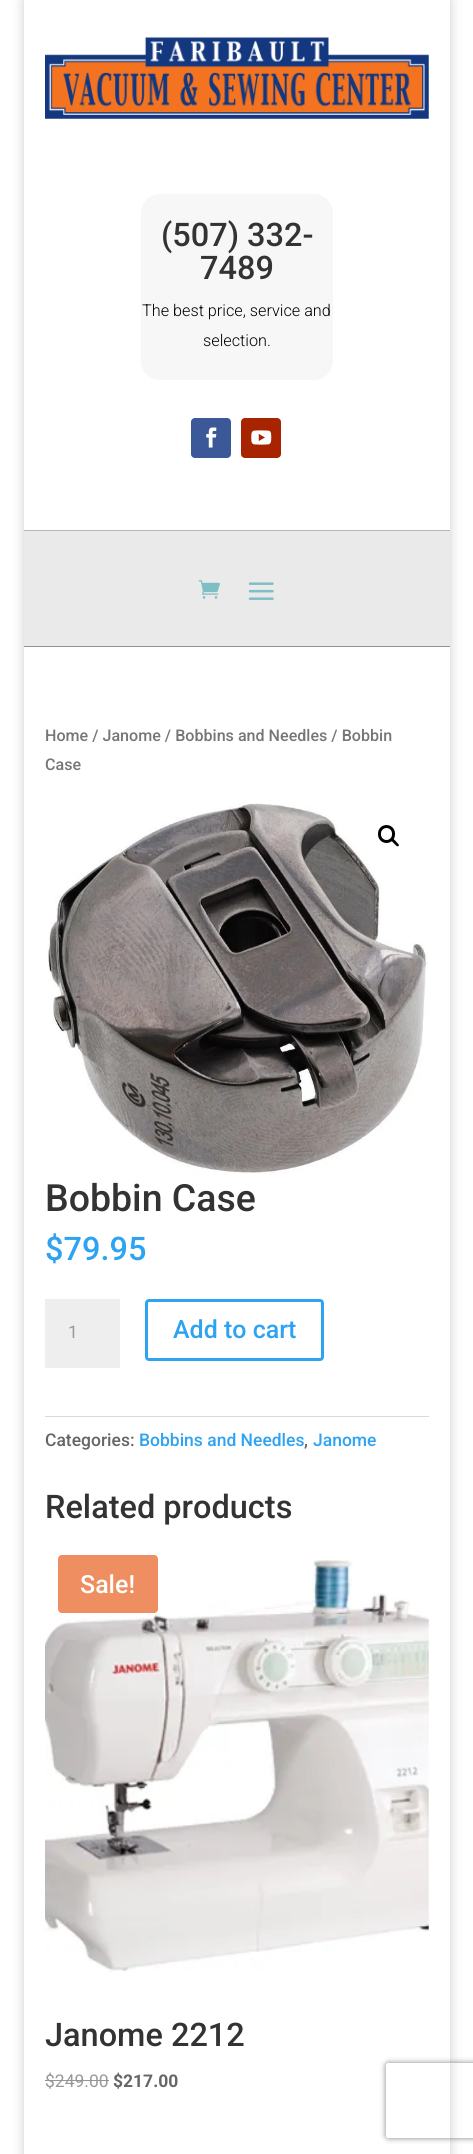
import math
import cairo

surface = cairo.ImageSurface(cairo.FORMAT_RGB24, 473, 2154)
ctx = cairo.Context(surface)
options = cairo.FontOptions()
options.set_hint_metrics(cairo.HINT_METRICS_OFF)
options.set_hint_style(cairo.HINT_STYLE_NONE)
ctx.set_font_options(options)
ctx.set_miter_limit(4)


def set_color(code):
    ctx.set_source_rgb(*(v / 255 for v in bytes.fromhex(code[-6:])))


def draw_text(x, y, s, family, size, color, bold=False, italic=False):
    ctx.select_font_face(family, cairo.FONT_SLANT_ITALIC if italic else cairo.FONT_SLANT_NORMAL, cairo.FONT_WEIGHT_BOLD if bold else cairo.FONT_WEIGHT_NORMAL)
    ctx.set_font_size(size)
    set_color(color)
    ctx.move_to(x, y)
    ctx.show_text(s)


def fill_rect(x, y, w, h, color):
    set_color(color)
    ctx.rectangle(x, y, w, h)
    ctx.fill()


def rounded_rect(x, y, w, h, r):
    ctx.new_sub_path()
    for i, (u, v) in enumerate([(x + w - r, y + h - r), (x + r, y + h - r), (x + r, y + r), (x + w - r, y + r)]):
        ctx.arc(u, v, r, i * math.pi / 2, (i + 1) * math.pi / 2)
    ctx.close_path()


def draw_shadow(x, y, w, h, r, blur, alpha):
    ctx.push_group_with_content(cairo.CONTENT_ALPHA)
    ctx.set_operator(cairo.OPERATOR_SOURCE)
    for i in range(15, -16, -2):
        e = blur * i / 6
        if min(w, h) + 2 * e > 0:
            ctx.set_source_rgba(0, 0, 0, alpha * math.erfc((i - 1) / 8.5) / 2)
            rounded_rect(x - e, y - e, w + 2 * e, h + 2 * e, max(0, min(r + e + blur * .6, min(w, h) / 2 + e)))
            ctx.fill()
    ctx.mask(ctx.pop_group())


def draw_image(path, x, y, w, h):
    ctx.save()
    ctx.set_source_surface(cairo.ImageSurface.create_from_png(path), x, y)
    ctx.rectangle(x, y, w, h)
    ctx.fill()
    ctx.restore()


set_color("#ffffff")
ctx.paint()
ctx.save()
ctx.set_fill_rule(cairo.FILL_RULE_EVEN_ODD)
ctx.new_path()
ctx.move_to(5, 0)
ctx.line_to(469, 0)
ctx.line_to(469, 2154)
ctx.line_to(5, 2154)
ctx.close_path()
ctx.move_to(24, 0)
ctx.line_to(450, 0)
ctx.line_to(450, 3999)
ctx.line_to(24, 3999)
ctx.close_path()
ctx.clip()
set_color("#000000")
draw_shadow(24, 0, 426, 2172, 0, 6, 0.2)
ctx.restore()
fill_rect(24, 530, 426, 1, "#b7b7b7")
draw_image("assets/img1.png", 45, 37, 384, 82)
set_color("#f7f7f7")
rounded_rect(141, 194, 192, 186, 19)
ctx.fill()
draw_text(161, 246, "(507) 332-", "Roboto Medium", 32.5, "#333333")
draw_text(200, 279, "7489", "Roboto Medium", 32.5, "#333333")
draw_text(142, 316, "The best price, service and", "Roboto Light", 16.25, "#000000")
draw_text(203, 346, "selection.", "Roboto Light", 16.25, "#000000")
set_color("#3b5998")
rounded_rect(191, 418, 40, 40, 4)
ctx.fill()
draw_image("assets/img2.png", 206, 427, 11, 21)
set_color("#a82400")
rounded_rect(241, 418, 40, 40, 4)
ctx.fill()
draw_image("assets/img3.png", 251, 430, 21, 15)
fill_rect(24, 531, 426, 115, "#eaeaea")
fill_rect(24, 646, 426, 1, "#919191")
draw_image("assets/img4.png", 198, 580, 22, 19)
draw_image("assets/img5.png", 248, 582, 26, 18)
draw_text(45, 741, "Home / Janome / Bobbins and Needles / Bobbin", "Roboto Medium", 16.1, "#767676")
draw_text(45, 770, "Case", "Roboto Medium", 16.1, "#767676")
draw_image("assets/img6.png", 45, 803, 383, 371)
rounded_rect(379.5, 826.5, 14, 15, 7)
set_color("#000000")
ctx.set_line_width(3)
ctx.stroke()
ctx.new_path()
ctx.move_to(391.5, 839)
ctx.curve_to(393, 837.5, 395, 840.5, 396, 841.5)
ctx.curve_to(396.5, 842.5, 400, 844.5, 398.5, 846)
ctx.curve_to(397, 847.5, 395, 844, 394, 843.5)
ctx.curve_to(393.5, 842.5, 390, 840.5, 391.5, 839)
ctx.close_path()
ctx.fill()
draw_text(45, 1211, "Bobbin Case", "Roboto Medium", 37.5, "#333333")
draw_text(45, 1260, "$79.95", "Roboto Medium", 32.5, "#2ea3f2")
fill_rect(45, 1299, 75, 69, "#eeeeee")
draw_text(68, 1338, "1", "Roboto", 17.5, "#999999")
rounded_rect(146.5, 1300.5, 176, 59, 2.5)
set_color("#2ea3f2")
ctx.stroke()
draw_text(173, 1338, "Add to cart", "Roboto Medium", 25, "#2ea3f2")
fill_rect(45, 1416, 384, 1, "#dadada")
draw_text(45, 1446, "Categories:", "Roboto Medium", 17.5, "#666666")
draw_text(139, 1446, "Bobbins and Needles", "Roboto Medium", 17.5, "#2ea3f2")
draw_text(304, 1446, ",", "Roboto Medium", 17.5, "#666666")
draw_text(313, 1446, "Janome", "Roboto Medium", 17.5, "#2ea3f2")
draw_text(45, 1518, "Related products", "Roboto Medium", 32.5, "#333333")
draw_image("assets/img7.png", 45, 1560, 384, 412)
set_color("#ef8f61")
rounded_rect(58, 1555, 100, 58, 4)
ctx.fill()
draw_text(80, 1593, "Sale!", "Roboto Medium", 25, "#ffffff")
draw_text(45, 2046, "Janome 2212", "Roboto Medium", 32.5, "#333333")
draw_text(45, 2087, "$249.00", "Roboto", 17.5, "#999999")
fill_rect(45, 2080, 64, 1, "#949494")
draw_text(113, 2087, "$217.00", "Roboto", 17.5, "#666666", bold=True)
ctx.save()
ctx.set_fill_rule(cairo.FILL_RULE_EVEN_ODD)
ctx.new_path()
ctx.move_to(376, 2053)
ctx.line_to(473, 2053)
ctx.line_to(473, 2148)
ctx.line_to(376, 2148)
ctx.close_path()
ctx.move_to(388.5, 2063)
ctx.line_to(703.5, 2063)
ctx.curve_to(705, 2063, 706, 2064, 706, 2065.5)
ctx.line_to(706, 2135.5)
ctx.curve_to(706, 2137, 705, 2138, 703.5, 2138)
ctx.line_to(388.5, 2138)
ctx.curve_to(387, 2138, 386, 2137, 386, 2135.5)
ctx.line_to(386, 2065.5)
ctx.curve_to(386, 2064, 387, 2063, 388.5, 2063)
ctx.close_path()
ctx.clip()
set_color("#808080")
draw_shadow(386, 2063, 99, 75, 2.5, 3, 1)
ctx.restore()
surface.write_to_png("output.png")
